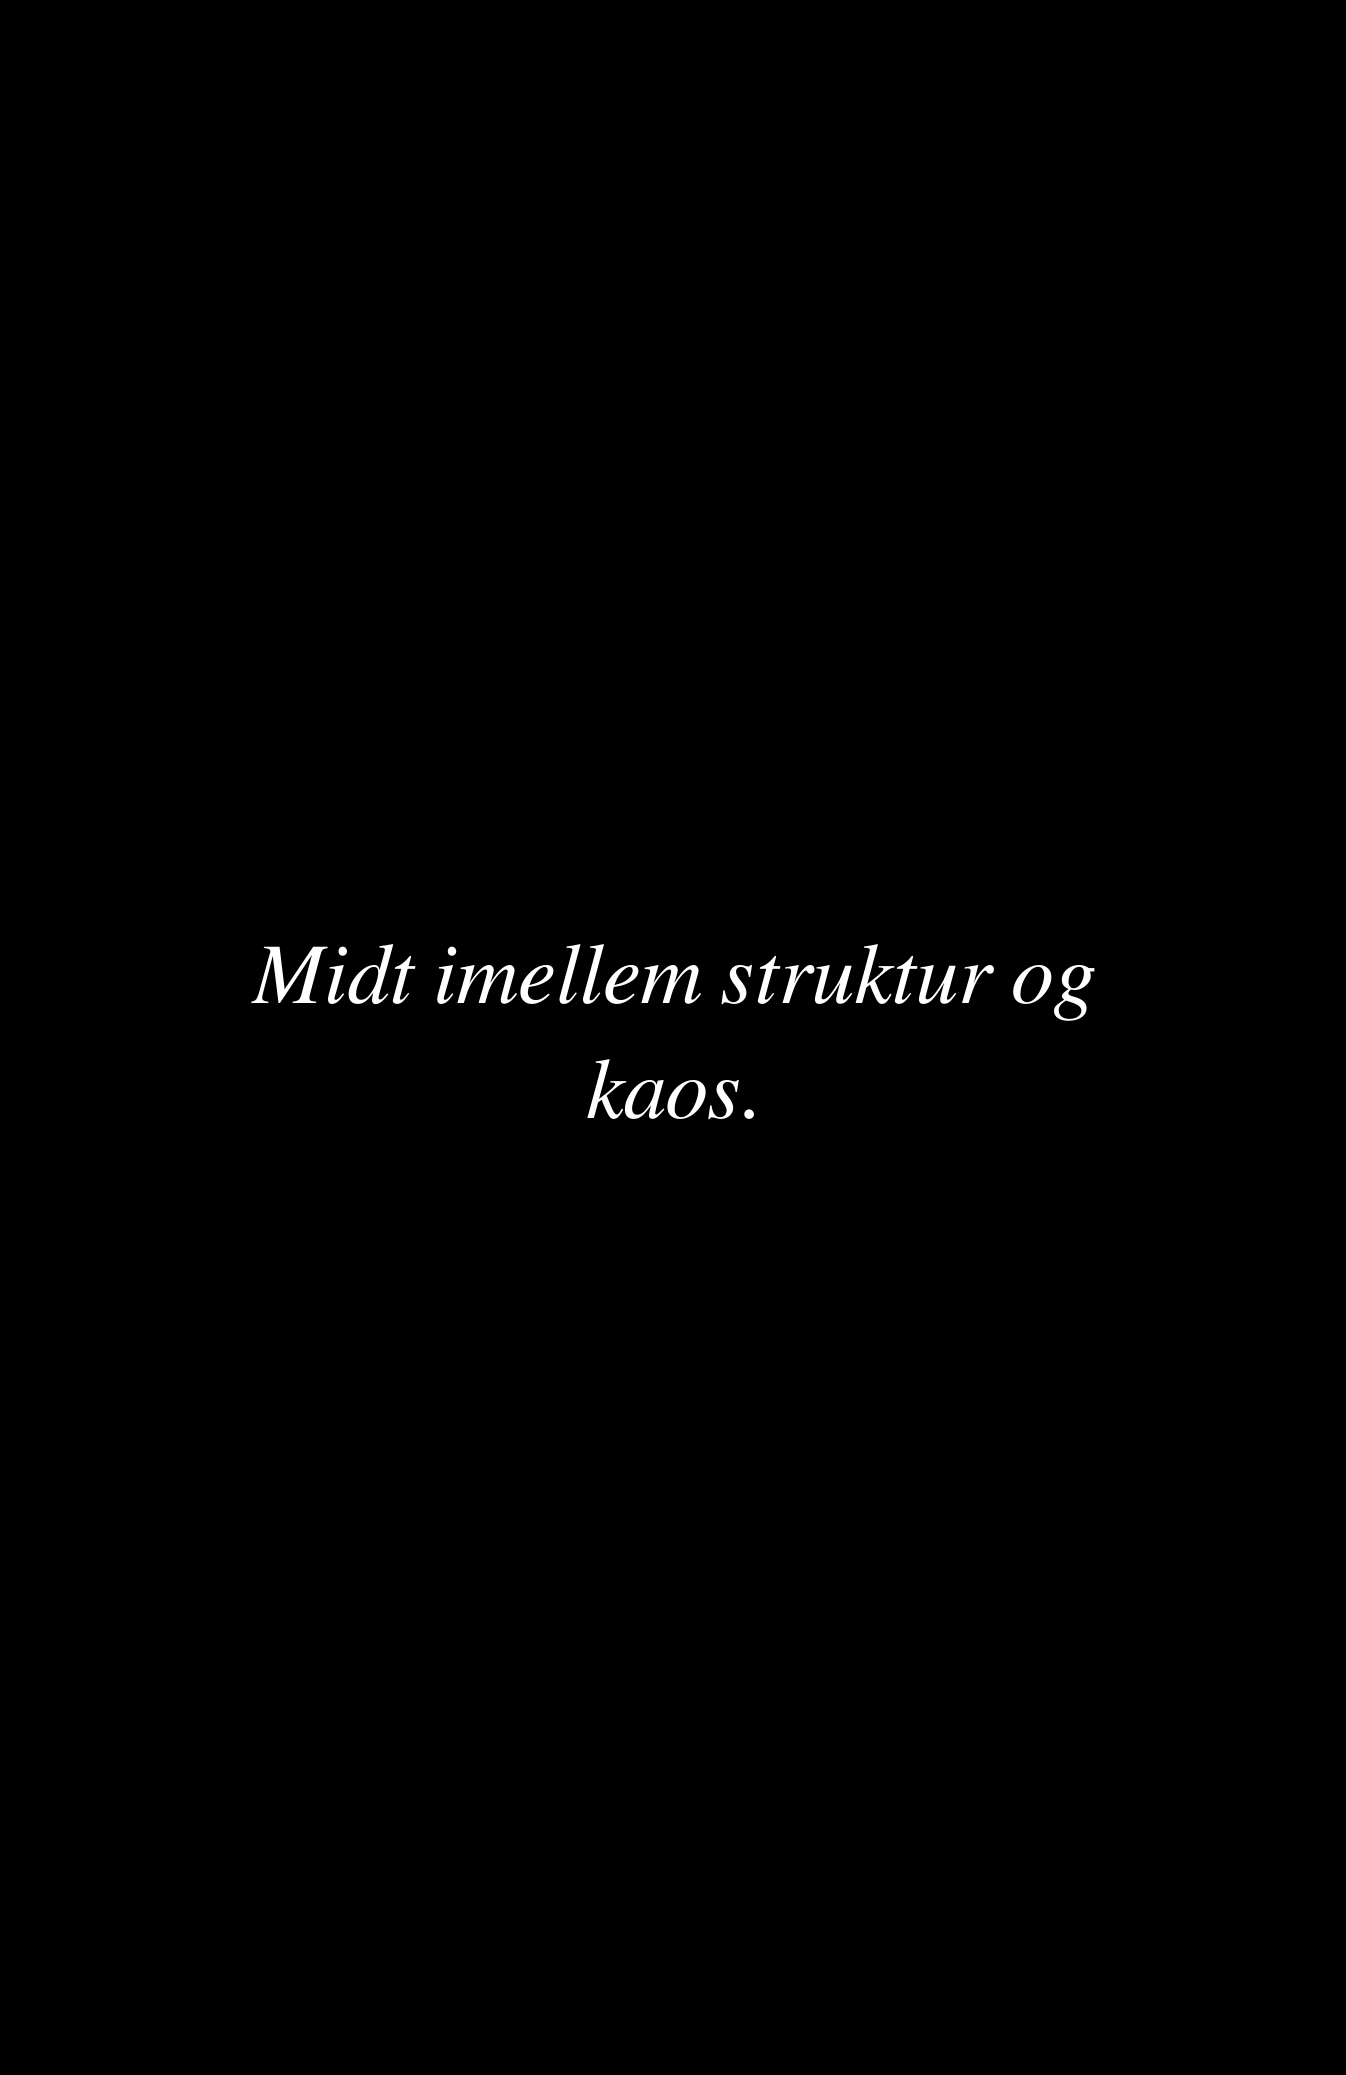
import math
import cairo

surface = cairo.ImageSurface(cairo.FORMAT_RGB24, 1346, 2075)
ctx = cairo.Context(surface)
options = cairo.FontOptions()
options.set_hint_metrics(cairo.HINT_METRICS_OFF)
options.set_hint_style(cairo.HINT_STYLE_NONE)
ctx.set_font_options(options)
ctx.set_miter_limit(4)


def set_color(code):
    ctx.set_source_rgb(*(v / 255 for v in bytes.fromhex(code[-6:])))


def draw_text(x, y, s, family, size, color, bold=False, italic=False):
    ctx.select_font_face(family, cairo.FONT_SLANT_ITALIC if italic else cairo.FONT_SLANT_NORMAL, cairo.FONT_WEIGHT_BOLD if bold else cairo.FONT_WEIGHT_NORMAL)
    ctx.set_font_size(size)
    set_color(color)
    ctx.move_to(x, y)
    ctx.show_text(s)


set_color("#000000")
ctx.paint()
draw_text(252, 1003, "Midt", "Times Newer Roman", 85, "#ffffff", italic=True)
draw_text(432, 1003, "imellem", "Times Newer Roman", 85, "#ffffff", italic=True)
draw_text(721, 1003, "struktur", "Times Newer Roman", 85, "#ffffff", italic=True)
draw_text(1011, 1003, "og", "Times Newer Roman", 85, "#ffffff", italic=True)
draw_text(585, 1118, "kaos.", "Times Newer Roman", 85, "#ffffff", italic=True)
surface.write_to_png("output.png")
